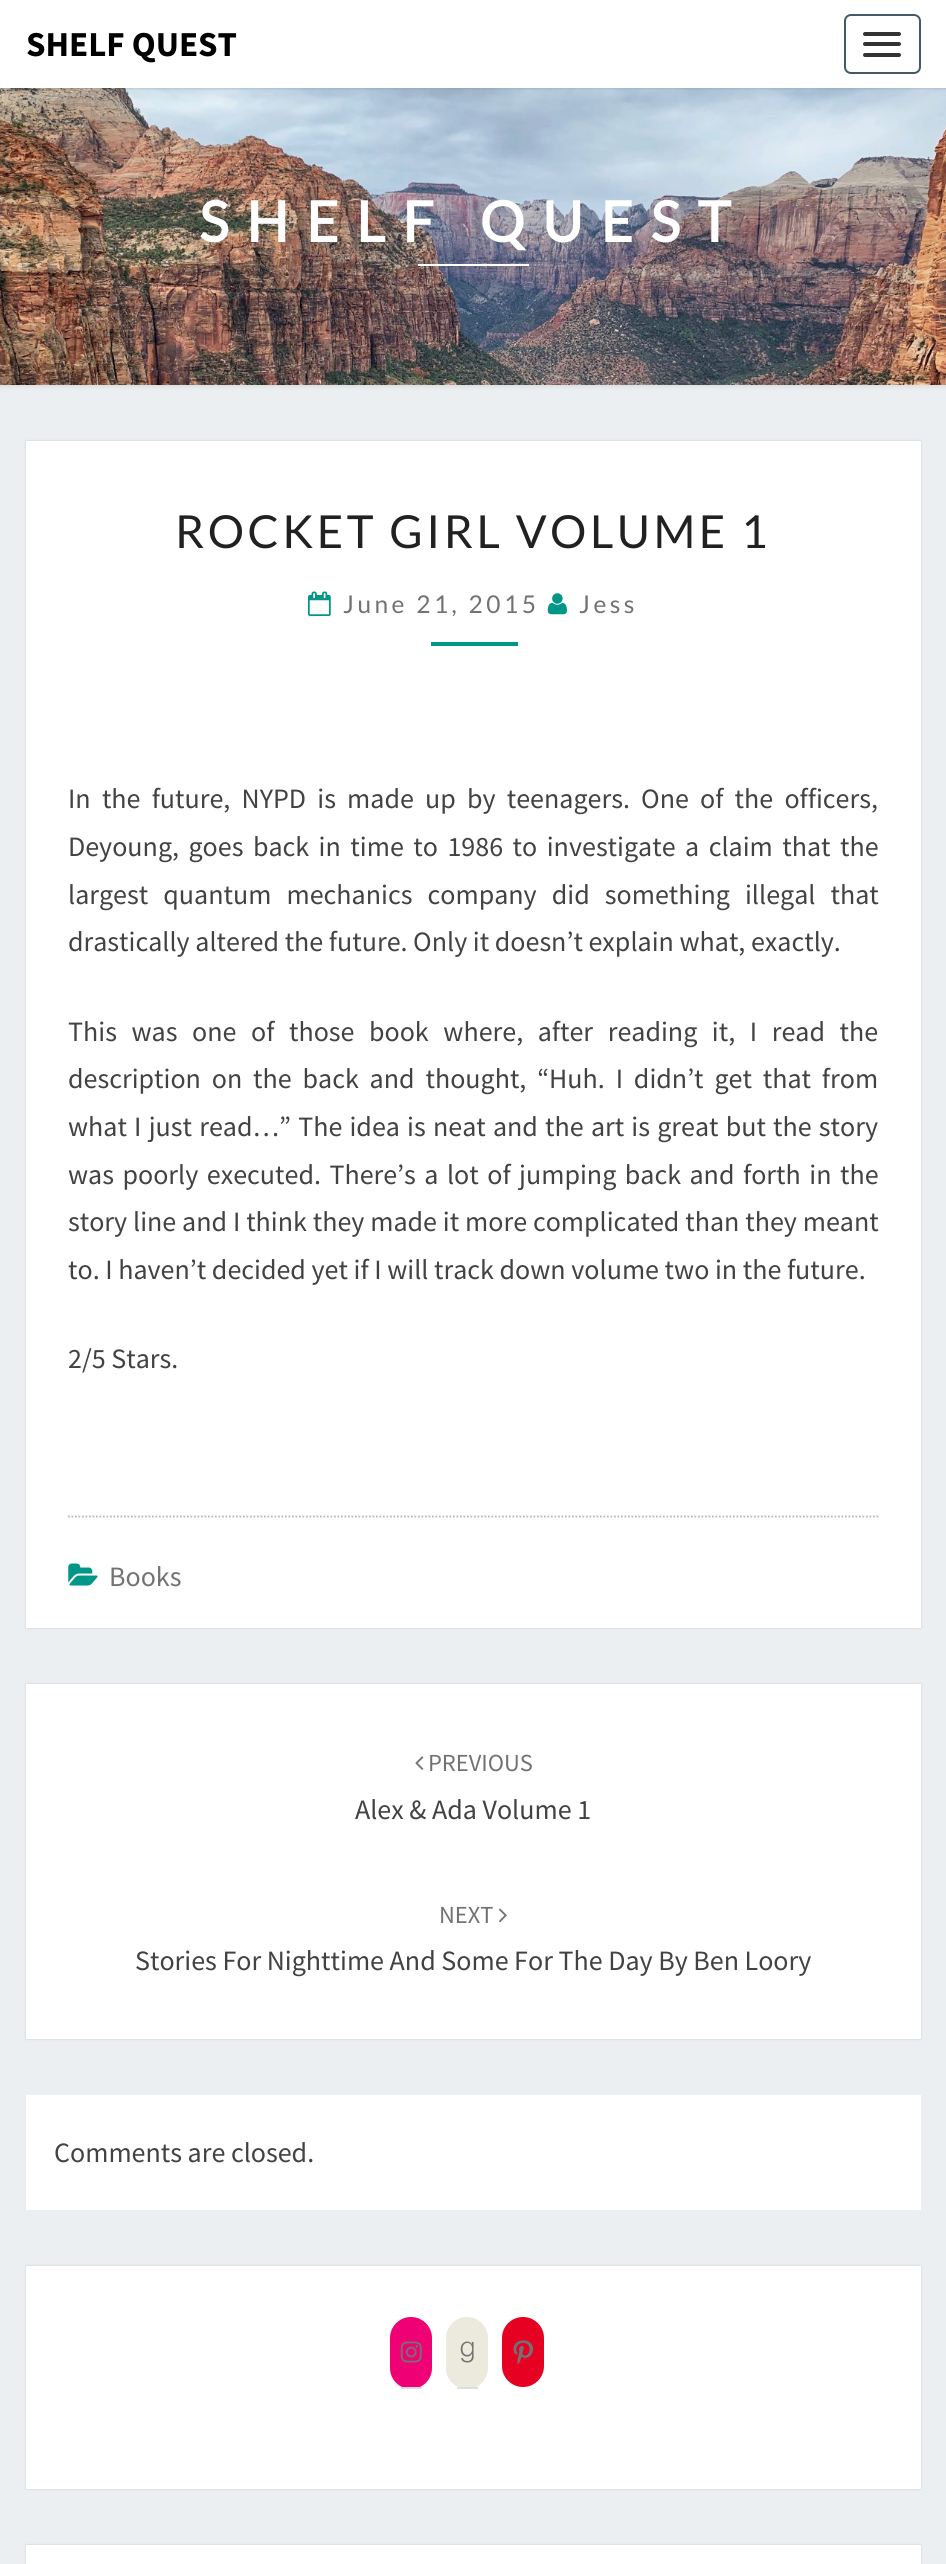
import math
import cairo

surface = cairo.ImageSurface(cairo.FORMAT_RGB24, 946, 2564)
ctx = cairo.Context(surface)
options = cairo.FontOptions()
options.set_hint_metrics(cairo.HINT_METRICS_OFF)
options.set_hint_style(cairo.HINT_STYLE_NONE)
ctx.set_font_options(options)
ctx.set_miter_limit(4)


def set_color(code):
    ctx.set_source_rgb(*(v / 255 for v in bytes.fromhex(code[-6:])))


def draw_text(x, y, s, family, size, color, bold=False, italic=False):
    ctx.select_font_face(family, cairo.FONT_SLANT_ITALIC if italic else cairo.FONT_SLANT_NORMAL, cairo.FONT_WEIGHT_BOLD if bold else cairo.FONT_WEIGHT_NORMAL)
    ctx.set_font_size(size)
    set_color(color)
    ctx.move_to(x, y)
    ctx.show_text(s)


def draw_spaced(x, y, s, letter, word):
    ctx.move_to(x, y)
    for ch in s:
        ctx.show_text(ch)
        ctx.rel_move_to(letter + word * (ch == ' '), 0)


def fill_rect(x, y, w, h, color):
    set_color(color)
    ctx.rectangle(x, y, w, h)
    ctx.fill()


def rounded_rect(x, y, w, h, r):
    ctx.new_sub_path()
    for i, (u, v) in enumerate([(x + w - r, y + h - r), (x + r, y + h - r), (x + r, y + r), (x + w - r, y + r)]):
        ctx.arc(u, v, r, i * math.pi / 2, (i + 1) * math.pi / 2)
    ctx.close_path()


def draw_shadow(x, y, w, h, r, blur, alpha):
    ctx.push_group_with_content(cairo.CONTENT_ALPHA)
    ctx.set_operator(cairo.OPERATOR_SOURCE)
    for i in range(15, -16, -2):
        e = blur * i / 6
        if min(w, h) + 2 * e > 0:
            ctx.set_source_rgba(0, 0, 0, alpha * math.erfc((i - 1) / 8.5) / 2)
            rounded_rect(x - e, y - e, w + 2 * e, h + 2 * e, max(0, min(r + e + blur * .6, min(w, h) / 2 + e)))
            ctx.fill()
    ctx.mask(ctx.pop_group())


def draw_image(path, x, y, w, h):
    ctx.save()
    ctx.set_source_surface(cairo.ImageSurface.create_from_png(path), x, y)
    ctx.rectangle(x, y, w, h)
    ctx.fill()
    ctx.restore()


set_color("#eceff1")
ctx.paint()
set_color("#b6b6b6")
draw_shadow(-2, 86, 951, 301, 0, 2, 0.3)
draw_image("assets/img1.png", 0, 88, 946, 297)
set_color("#646464")
draw_shadow(0, 2, 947, 87, 0, 1, 0.2)
fill_rect(0, 0, 946, 88, "#ffffff")
draw_text(26, 56, "SHELF QUEST", "Source Sans Pro", 35, "#000000", bold=True)
rounded_rect(845, 15, 75, 58, 6)
set_color("#455a64")
ctx.stroke()
set_color("#333333")
rounded_rect(863, 32, 38, 4, 2)
ctx.fill()
rounded_rect(863, 42, 38, 4, 2)
ctx.fill()
rounded_rect(863, 53, 38, 4, 2)
ctx.fill()
ctx.select_font_face("Lato", cairo.FONT_SLANT_NORMAL, cairo.FONT_WEIGHT_BOLD)
ctx.set_font_size(56)
set_color("#ffffff")
draw_spaced(199, 242, "SHELF QUEST", 17.5, 0)
fill_rect(418, 264, 111, 2, "#ffffff")
set_color("#000000")
draw_shadow(26, 441, 895, 1187, 0, 1, 0.15)
fill_rect(26, 441, 895, 1187, "#ffffff")
ctx.select_font_face("Lato")
ctx.set_font_size(45.5)
set_color("#212121")
draw_spaced(175, 548, "ROCKET GIRL VOLUME 1", 3.5, 0)
draw_image("assets/img2.png", 308, 591, 23, 25)
ctx.set_font_size(24.5)
set_color("#727272")
draw_spaced(343, 613, "June 21, 2015", 3.5, 0)
draw_image("assets/img3.png", 547, 593, 20, 22)
draw_spaced(579, 613, "Jess", 3.5, 0)
fill_rect(431, 642, 87, 4, "#009688")
ctx.select_font_face("Source Sans Pro")
ctx.set_font_size(28)
set_color("#424242")
draw_spaced(68, 808, "In the future, NYPD is made up by teenagers. One of the officers,", 0, 5.6)
draw_spaced(68, 856, "Deyoung, goes back in time to 1986 to investigate a claim that the", 0, 3.9)
draw_spaced(68, 904, "largest quantum mechanics company did something illegal that", 0, 9.5)
draw_text(68, 951, "drastically altered the future. Only it doesn’t explain what, exactly.", "Source Sans Pro", 28, "#424242")
draw_spaced(68, 1041, "This was one of those book where, after reading it, I read the", 0, 9)
draw_spaced(68, 1088, "description on the back and thought, “Huh. I didn’t get that from", 0, 5.25)
draw_spaced(68, 1136, "what I just read…” The idea is neat and the art is great but the story", 0, 1.6)
draw_spaced(68, 1184, "was poorly executed. There’s a lot of jumping back and forth in the", 0, 2.9)
draw_spaced(68, 1231, "story line and I think they made it more complicated than they meant", 0, 0.25)
draw_text(68, 1279, "to. I haven’t decided yet if I will track down volume two in the future.", "Source Sans Pro", 28, "#424242")
draw_text(68, 1368, "2/5 Stars.", "Source Sans Pro", 28, "#424242")
ctx.new_path()
ctx.move_to(68, 1516.5)
ctx.line_to(878.5, 1516.5)
set_color("#b6b6b6")
ctx.set_line_width(1.8)
ctx.set_dash([1.75, 1.75])
ctx.stroke()
draw_image("assets/img4.png", 68, 1563, 30, 23)
draw_text(109, 1586, "Books", "Source Sans Pro", 28, "#727272")
set_color("#000000")
draw_shadow(26, 1684, 895, 355, 0, 1, 0.15)
fill_rect(26, 1684, 895, 355, "#ffffff")
draw_image("assets/img5.png", 415, 1756, 9, 14)
draw_text(428, 1771, "PREVIOUS", "Source Sans Pro", 24.5, "#727272")
draw_text(355, 1819, "Alex & Ada Volume 1", "Source Sans Pro", 28, "#424242")
draw_text(439, 1923, "NEXT", "Source Sans Pro", 24.5, "#727272")
draw_image("assets/img6.png", 499, 1908, 8, 15)
draw_text(135, 1970, "Stories For Nighttime And Some For The Day By Ben Loory", "Source Sans Pro", 28, "#424242")
fill_rect(26, 2095, 895, 115, "#ffffff")
draw_text(54, 2162, "Comments are closed.", "Source Sans Pro", 28, "#424242")
set_color("#000000")
draw_shadow(26, 2266, 895, 223, 0, 1, 0.15)
fill_rect(26, 2266, 895, 223, "#ffffff")
set_color("#f00075")
rounded_rect(390, 2317, 42, 72, 21)
ctx.fill()
fill_rect(401, 2387, 21, 2, "#dddddd")
draw_image("assets/img7.png", 400, 2341, 22, 22)
set_color("#eceadd")
rounded_rect(446, 2317, 42, 72, 21)
ctx.fill()
fill_rect(457, 2387, 21, 2, "#dddddd")
draw_image("assets/img8.png", 460, 2341, 14, 22)
set_color("#e60122")
rounded_rect(502, 2317, 42, 70, 21)
ctx.fill()
draw_image("assets/img9.png", 513, 2340, 20, 25)
set_color("#000000")
draw_shadow(26, 2545, 895, 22, 0, 1, 0.15)
fill_rect(26, 2545, 895, 19, "#ffffff")
surface.write_to_png("output.png")
